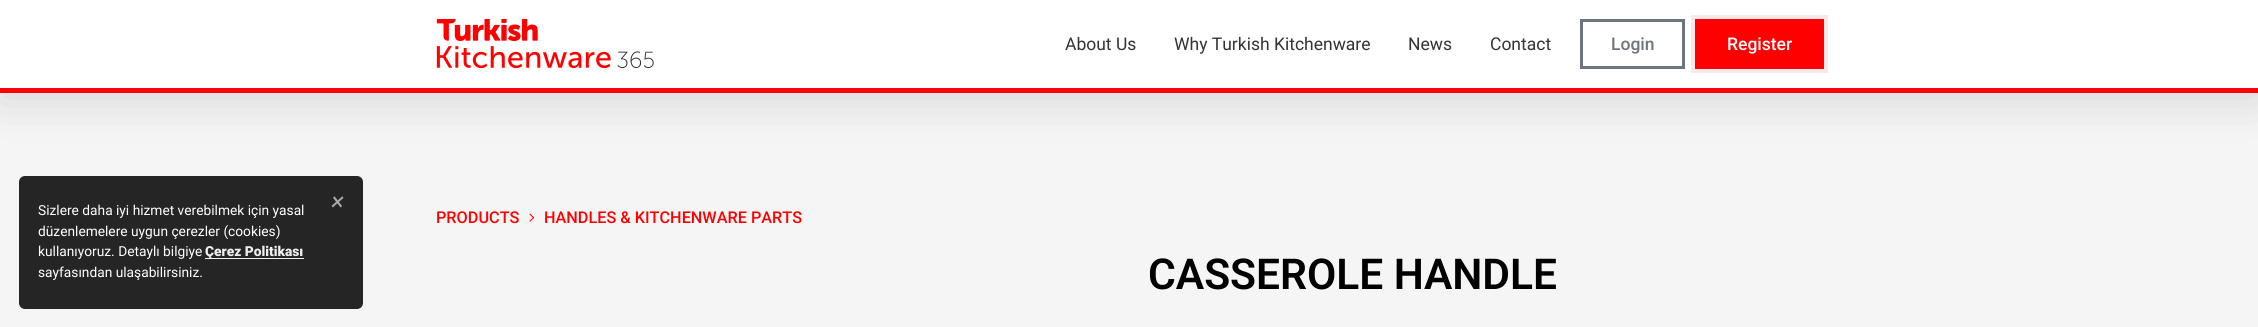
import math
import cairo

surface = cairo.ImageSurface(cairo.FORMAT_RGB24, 2258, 327)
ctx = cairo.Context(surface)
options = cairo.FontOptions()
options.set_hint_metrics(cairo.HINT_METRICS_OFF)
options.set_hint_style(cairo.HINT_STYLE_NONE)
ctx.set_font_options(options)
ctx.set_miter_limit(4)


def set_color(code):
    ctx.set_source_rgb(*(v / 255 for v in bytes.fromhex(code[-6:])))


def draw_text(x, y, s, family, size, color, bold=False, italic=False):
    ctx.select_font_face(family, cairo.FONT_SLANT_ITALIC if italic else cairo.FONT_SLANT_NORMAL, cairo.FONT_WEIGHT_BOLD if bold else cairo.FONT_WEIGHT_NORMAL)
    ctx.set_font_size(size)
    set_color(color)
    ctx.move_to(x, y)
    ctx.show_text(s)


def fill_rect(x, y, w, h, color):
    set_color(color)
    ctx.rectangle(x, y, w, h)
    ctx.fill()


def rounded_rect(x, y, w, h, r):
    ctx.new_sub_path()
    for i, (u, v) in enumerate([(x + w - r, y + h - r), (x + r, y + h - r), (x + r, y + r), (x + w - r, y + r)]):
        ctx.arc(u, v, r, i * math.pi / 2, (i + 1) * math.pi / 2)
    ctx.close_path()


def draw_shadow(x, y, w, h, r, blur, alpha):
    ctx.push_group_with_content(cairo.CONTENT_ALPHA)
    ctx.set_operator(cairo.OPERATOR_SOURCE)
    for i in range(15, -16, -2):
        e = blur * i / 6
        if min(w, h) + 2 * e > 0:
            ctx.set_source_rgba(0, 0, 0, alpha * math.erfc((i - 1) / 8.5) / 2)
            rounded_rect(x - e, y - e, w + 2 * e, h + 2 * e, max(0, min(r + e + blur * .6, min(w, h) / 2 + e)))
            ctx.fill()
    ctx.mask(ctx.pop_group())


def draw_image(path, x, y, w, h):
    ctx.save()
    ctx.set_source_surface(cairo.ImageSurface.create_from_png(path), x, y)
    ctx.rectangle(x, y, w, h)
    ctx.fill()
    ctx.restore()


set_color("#f5f5f5")
ctx.paint()
set_color("#000000")
draw_shadow(0, 4, 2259, 92, 0, 25, 0.15)
fill_rect(0, 0, 2258, 88, "#ffffff")
draw_image("assets/img1.png", 436, 19, 218, 50)
draw_text(1065, 50, "About Us", "Roboto", 17.5, "#333333")
draw_text(1174, 50, "Why Turkish Kitchenware", "Roboto", 17.5, "#333333")
draw_text(1408, 50, "News", "Roboto", 17.5, "#333333")
draw_text(1490, 50, "Contact", "Roboto", 17.5, "#333333")
ctx.rectangle(1581.5, 20.5, 102, 47)
set_color("#6c757d")
ctx.set_line_width(3)
ctx.stroke()
draw_text(1611, 50, "Login", "Roboto Medium", 17.5, "#6c757d")
ctx.rectangle(1693, 17, 133, 54)
set_color("#f5e9e9")
ctx.set_line_width(4)
ctx.stroke()
fill_rect(1695, 19, 129, 50, "#ff0000")
draw_text(1727, 50, "Register", "Roboto Medium", 17.5, "#ffffff")
fill_rect(0, 88, 2258, 5, "#ff0000")
set_color("#252525")
rounded_rect(19, 176, 344, 133, 6)
ctx.fill()
draw_text(331, 210, "×", "Roboto", 25, "#a8a8a8", italic=True)
draw_text(38, 215, "Sizlere daha iyi hizmet verebilmek için yasal", "Roboto", 13.75, "#ffffff")
draw_text(38, 236, "düzenlemelere uygun çerezler (cookies)", "Roboto", 13.75, "#ffffff")
draw_text(38, 256, "kullanıyoruz. Detaylı bilgiye", "Roboto", 13.75, "#ffffff")
fill_rect(205, 258, 99, 1, "#eeeeee")
draw_text(205, 256, "Çerez Politikası", "Roboto Black", 13.75, "#eeeeee")
draw_text(38, 277, "sayfasından ulaşabilirsiniz.", "Roboto", 13.75, "#ffffff")
draw_text(436, 223, "PRODUCTS", "Roboto Medium", 16.25, "#ff0000")
draw_image("assets/img2.png", 529, 213, 6, 9)
draw_text(544, 223, "HANDLES & KITCHENWARE PARTS", "Roboto Medium", 16.25, "#ff0000")
draw_text(1148, 289, "CASSEROLE HANDLE", "Roboto SemiBold", 42.5, "#000000")
surface.write_to_png("output.png")
